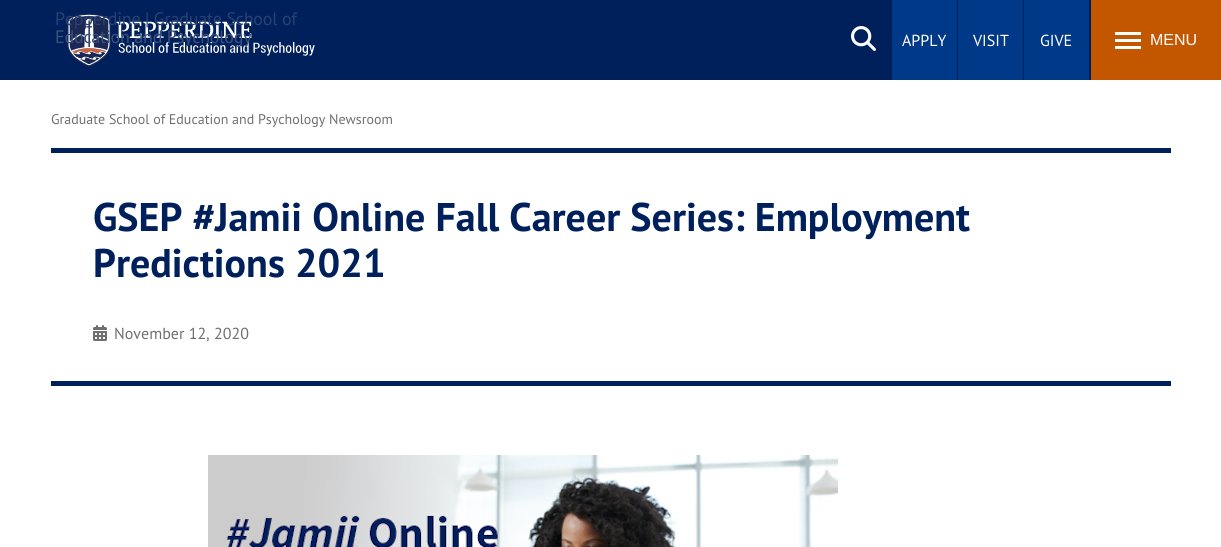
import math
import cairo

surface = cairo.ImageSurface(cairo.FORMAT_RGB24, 1221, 547)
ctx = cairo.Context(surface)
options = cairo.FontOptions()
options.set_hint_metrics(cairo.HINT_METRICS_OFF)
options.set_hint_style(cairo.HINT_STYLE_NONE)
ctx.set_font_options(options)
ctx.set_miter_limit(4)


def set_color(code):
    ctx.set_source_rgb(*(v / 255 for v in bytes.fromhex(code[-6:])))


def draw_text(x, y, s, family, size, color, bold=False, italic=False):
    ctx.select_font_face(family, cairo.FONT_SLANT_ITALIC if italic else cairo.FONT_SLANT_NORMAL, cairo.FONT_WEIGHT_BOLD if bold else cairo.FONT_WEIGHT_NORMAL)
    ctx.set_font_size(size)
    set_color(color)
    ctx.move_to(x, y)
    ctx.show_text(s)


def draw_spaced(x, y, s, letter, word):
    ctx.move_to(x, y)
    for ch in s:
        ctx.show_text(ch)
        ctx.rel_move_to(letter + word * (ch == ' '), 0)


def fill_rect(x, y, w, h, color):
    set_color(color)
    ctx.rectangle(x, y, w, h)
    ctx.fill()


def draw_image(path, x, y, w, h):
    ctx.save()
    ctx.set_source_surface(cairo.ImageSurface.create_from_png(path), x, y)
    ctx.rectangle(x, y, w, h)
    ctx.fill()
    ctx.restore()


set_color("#ffffff")
ctx.paint()
fill_rect(0, 0, 1091, 80, "#00205c")
draw_image("assets/img1.png", 67, 13, 248, 54)
ctx.select_font_face("PT Sans")
ctx.set_font_size(18)
set_color("#284172")
draw_spaced(55, 25, "Pepperdine | Graduate School of", -0.2, 0)
set_color("#3a507d")
draw_spaced(55, 43, "Education and Psychology", -0.2, 0)
draw_image("assets/img2.png", 851, 26, 25, 25)
fill_rect(892, 0, 65, 80, "#003988")
draw_text(902, 46, "APPLY", "PT Sans", 16, "#ffffff")
fill_rect(958, 0, 65, 80, "#003988")
draw_text(973, 46, "VISIT", "PT Sans", 16, "#ffffff")
fill_rect(1024, 0, 65, 80, "#003988")
draw_text(1040, 46, "GIVE", "PT Sans", 16, "#ffffff")
fill_rect(1091, 0, 130, 80, "#c25700")
fill_rect(1115, 32, 26, 3, "#ffffff")
fill_rect(1115, 39, 26, 3, "#ffffff")
fill_rect(1115, 46, 26, 3, "#ffffff")
draw_text(1150, 45, "MENU", "Liberation Sans", 16, "#ffffff")
draw_text(51, 124, "Graduate School of Education and Psychology Newsroom", "PT Sans", 14, "#6f6f6f")
fill_rect(51, 148, 1120, 5, "#00205c")
fill_rect(51, 381, 1120, 5, "#00205c")
draw_text(93, 231, "GSEP #Jamii Online Fall Career Series: Employment", "PT Sans", 40, "#00205c", bold=True)
draw_text(93, 277, "Predictions 2021", "PT Sans", 40, "#00205c", bold=True)
draw_image("assets/img3.png", 93, 325, 14, 16)
draw_text(114, 339, "November 12, 2020", "PT Sans", 16, "#6f6f6f")
draw_image("assets/img4.png", 208, 455, 630, 92)
surface.write_to_png("output.png")
